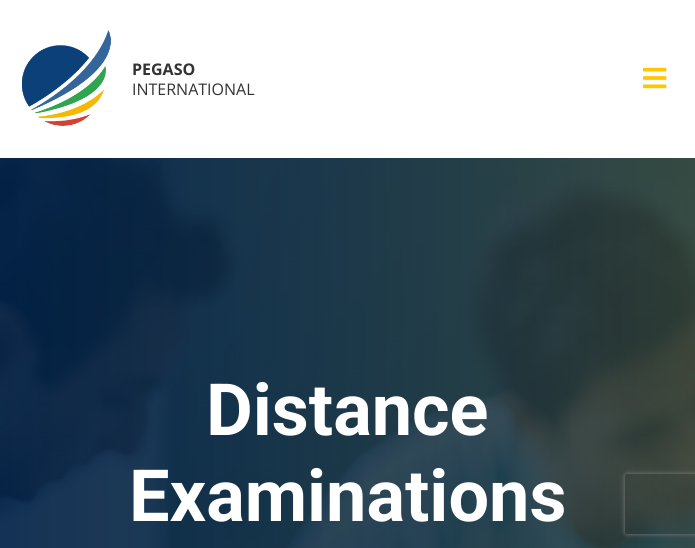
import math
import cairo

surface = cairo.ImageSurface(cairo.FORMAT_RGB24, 695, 548)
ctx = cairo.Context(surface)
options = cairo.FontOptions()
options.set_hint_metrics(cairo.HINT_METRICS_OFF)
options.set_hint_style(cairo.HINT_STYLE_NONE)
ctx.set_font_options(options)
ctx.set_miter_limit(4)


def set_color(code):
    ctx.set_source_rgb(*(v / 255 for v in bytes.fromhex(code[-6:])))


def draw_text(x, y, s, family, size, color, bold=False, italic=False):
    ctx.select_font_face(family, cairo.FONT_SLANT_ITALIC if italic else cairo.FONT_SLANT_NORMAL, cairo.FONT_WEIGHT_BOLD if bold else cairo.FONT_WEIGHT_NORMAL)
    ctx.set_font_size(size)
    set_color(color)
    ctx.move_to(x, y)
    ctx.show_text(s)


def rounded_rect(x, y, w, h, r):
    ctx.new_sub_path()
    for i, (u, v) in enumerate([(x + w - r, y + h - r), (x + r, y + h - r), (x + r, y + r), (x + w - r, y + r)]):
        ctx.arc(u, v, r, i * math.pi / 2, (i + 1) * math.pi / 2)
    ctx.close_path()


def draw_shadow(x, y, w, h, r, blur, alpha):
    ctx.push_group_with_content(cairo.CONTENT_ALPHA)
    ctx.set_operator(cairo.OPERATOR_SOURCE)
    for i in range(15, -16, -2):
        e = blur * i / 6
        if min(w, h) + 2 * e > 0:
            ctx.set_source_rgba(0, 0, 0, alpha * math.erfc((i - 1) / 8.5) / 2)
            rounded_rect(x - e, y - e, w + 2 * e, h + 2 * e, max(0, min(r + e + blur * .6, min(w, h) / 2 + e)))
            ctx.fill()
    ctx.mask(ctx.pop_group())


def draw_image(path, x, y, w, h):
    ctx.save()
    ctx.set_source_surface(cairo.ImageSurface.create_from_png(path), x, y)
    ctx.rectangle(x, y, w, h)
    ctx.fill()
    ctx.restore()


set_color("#ffffff")
ctx.paint()
draw_image("assets/img1.png", 22, 30, 89, 96)
draw_text(132, 75, "PEGASO", "Open Sans", 16, "#333333", bold=True)
draw_text(132, 95, "INTERNATIONAL", "Open Sans", 16, "#333333")
draw_image("assets/img2.png", 643, 67, 24, 22)
draw_image("assets/img3.png", 0, 158, 695, 390)
draw_text(206, 435, "Distance", "Roboto", 72, "#ffffff", bold=True)
draw_text(129, 521, "Examinations", "Roboto", 72, "#ffffff", bold=True)
ctx.save()
ctx.set_fill_rule(cairo.FILL_RULE_EVEN_ODD)
ctx.new_path()
ctx.move_to(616, 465)
ctx.line_to(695, 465)
ctx.line_to(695, 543)
ctx.line_to(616, 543)
ctx.close_path()
ctx.move_to(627, 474)
ctx.line_to(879, 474)
ctx.curve_to(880, 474, 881, 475, 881, 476)
ctx.line_to(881, 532)
ctx.curve_to(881, 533, 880, 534, 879, 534)
ctx.line_to(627, 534)
ctx.curve_to(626, 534, 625, 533, 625, 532)
ctx.line_to(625, 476)
ctx.curve_to(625, 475, 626, 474, 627, 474)
ctx.close_path()
ctx.clip()
set_color("#808080")
draw_shadow(625, 474, 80, 60, 2, 2.5, 1)
ctx.restore()
surface.write_to_png("output.png")
